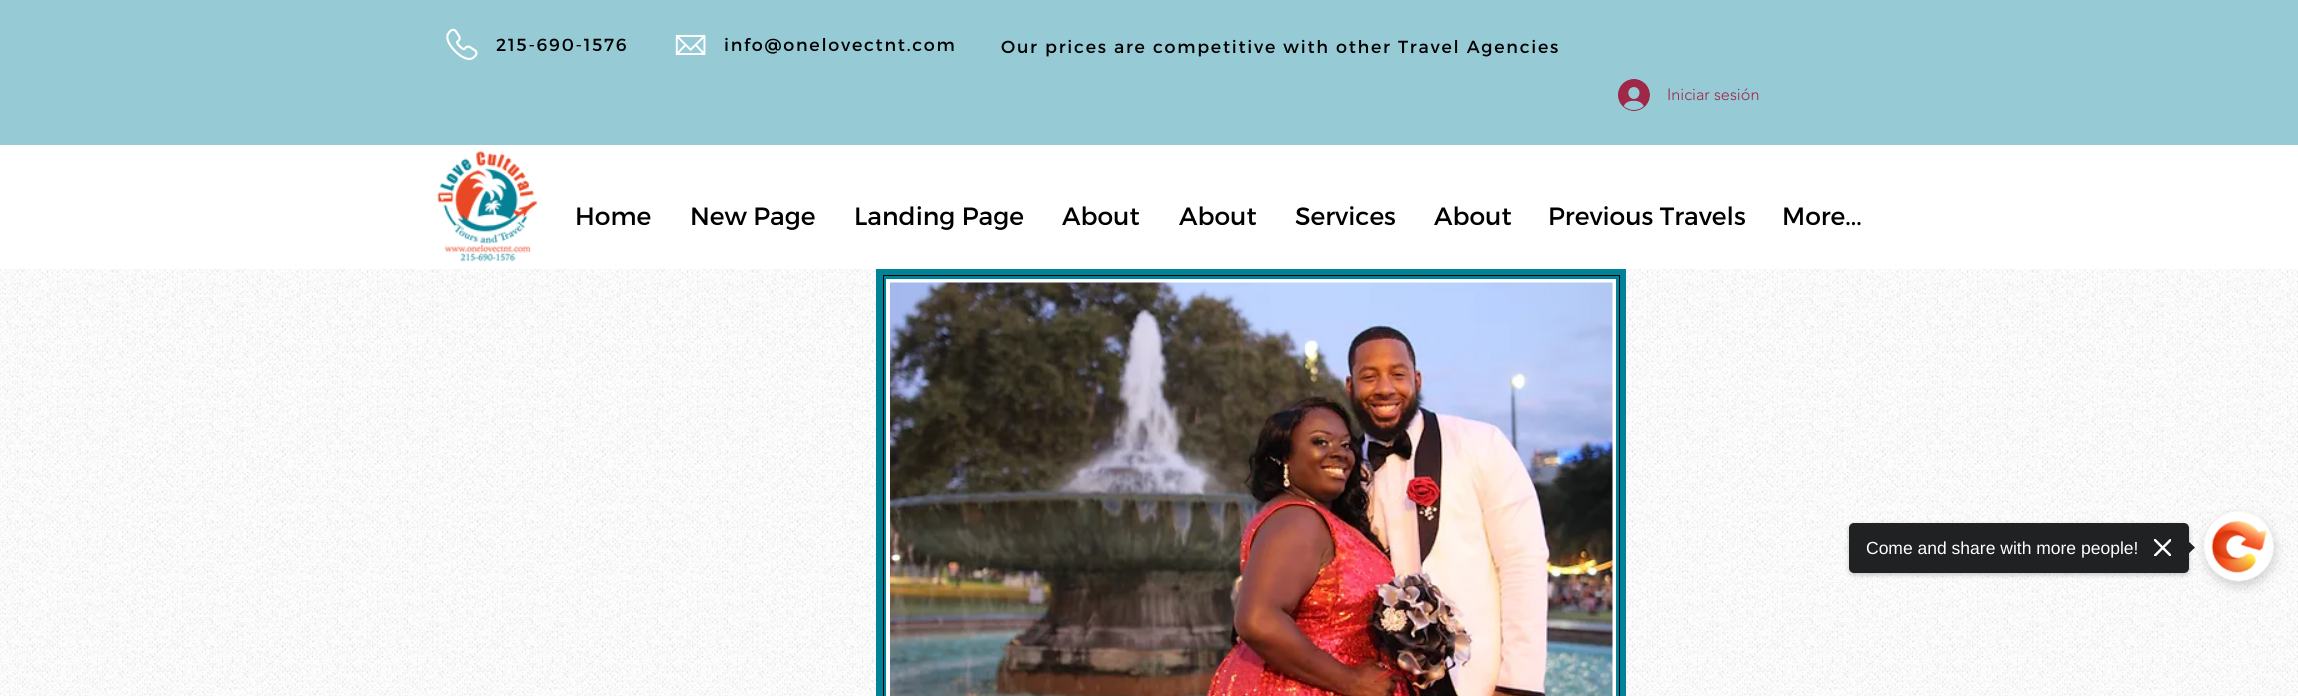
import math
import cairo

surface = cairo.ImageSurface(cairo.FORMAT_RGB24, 2298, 696)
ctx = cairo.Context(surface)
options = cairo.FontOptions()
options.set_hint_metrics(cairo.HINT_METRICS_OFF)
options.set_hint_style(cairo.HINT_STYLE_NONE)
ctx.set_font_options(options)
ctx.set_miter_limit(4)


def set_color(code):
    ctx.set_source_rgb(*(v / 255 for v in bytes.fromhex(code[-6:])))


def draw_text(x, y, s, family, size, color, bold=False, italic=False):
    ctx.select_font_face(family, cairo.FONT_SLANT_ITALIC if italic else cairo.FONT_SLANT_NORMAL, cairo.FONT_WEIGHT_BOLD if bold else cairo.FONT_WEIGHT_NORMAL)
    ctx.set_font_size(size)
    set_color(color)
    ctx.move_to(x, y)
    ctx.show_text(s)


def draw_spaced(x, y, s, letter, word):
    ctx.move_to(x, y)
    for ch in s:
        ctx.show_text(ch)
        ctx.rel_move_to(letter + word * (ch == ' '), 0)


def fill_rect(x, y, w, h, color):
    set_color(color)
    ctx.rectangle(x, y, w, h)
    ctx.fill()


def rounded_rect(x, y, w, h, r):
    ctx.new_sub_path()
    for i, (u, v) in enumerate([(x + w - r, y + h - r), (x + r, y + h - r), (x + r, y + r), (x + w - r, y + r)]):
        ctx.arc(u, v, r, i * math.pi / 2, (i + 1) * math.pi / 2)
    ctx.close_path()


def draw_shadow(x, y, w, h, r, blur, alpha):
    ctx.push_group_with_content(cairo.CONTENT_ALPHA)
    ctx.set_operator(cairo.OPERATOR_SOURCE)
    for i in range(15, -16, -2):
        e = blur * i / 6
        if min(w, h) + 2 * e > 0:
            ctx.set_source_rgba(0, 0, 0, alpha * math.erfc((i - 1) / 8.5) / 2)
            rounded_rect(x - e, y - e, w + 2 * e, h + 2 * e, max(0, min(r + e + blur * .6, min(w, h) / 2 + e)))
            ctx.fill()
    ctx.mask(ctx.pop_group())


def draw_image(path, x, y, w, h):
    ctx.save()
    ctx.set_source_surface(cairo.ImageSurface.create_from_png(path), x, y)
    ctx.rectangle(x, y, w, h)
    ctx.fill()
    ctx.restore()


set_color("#ffffff")
ctx.paint()
fill_rect(0, 0, 2298, 145, "#96cbd6")
draw_image("assets/img1.png", 446, 28, 32, 32)
ctx.select_font_face("Montserrat")
ctx.set_font_size(17.5)
set_color("#000000")
draw_spaced(496, 51, "215-690-1576", 1.75, 0)
draw_image("assets/img2.png", 675, 35, 31, 20)
draw_spaced(724, 51, "info@onelovectnt.com", 1.75, 0)
draw_spaced(1001, 53, "Our prices are competitive with other Travel Agencies", 1.75, 0)
draw_image("assets/img3.png", 1618, 79, 32, 32)
draw_text(1667, 100, "Iniciar sesión", "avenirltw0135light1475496 Light", 16.25, "#9f2747")
draw_image("assets/img4.png", 437, 151, 101, 111)
draw_text(575, 225, "Home", "Montserrat", 25, "#000000")
draw_text(690, 225, "New Page", "Montserrat", 25, "#000000")
draw_text(854, 225, "Landing Page", "Montserrat", 25, "#000000")
draw_text(1062, 225, "About", "Montserrat", 25, "#000000")
draw_text(1179, 225, "About", "Montserrat", 25, "#000000")
draw_text(1295, 225, "Services", "Montserrat", 25, "#000000")
draw_text(1434, 225, "About", "Montserrat", 25, "#000000")
draw_text(1548, 225, "Previous Travels", "Montserrat", 25, "#000000")
draw_text(1782, 225, "More...", "Montserrat", 25, "#000000")
draw_image("assets/img6.png", 0, 269, 2298, 427)
set_color("#ffffff")
ctx.rectangle(881, 274, 740, 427)
ctx.fill_preserve()
set_color("#008298")
ctx.set_line_width(10)
ctx.stroke()
draw_image("assets/img5.png", 890, 282, 723, 414)
ctx.rectangle(883.5, 275.5, 736, 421)
set_color("#000000")
ctx.set_line_width(1)
ctx.stroke()
set_color("#000000")
draw_shadow(2205, 516, 70, 70, 35, 5.5, 0.17)
draw_shadow(1849, 525, 340, 50, 5, 2.5, 0.22)
set_color("#202123")
rounded_rect(1849, 523, 340, 50, 5)
ctx.fill()
draw_text(1866, 554, "Come and share with more people!", "Liberation Sans", 17.5, "#ffffff")
draw_image("assets/img7.png", 2154, 539, 17, 17)
set_color("#202123")
ctx.new_path()
ctx.move_to(2186, 556)
ctx.line_to(2186, 539)
ctx.line_to(2195, 547.5)
ctx.close_path()
ctx.fill()
draw_image("assets/img8.png", 2203, 511, 71, 71)
surface.write_to_png("output.png")
